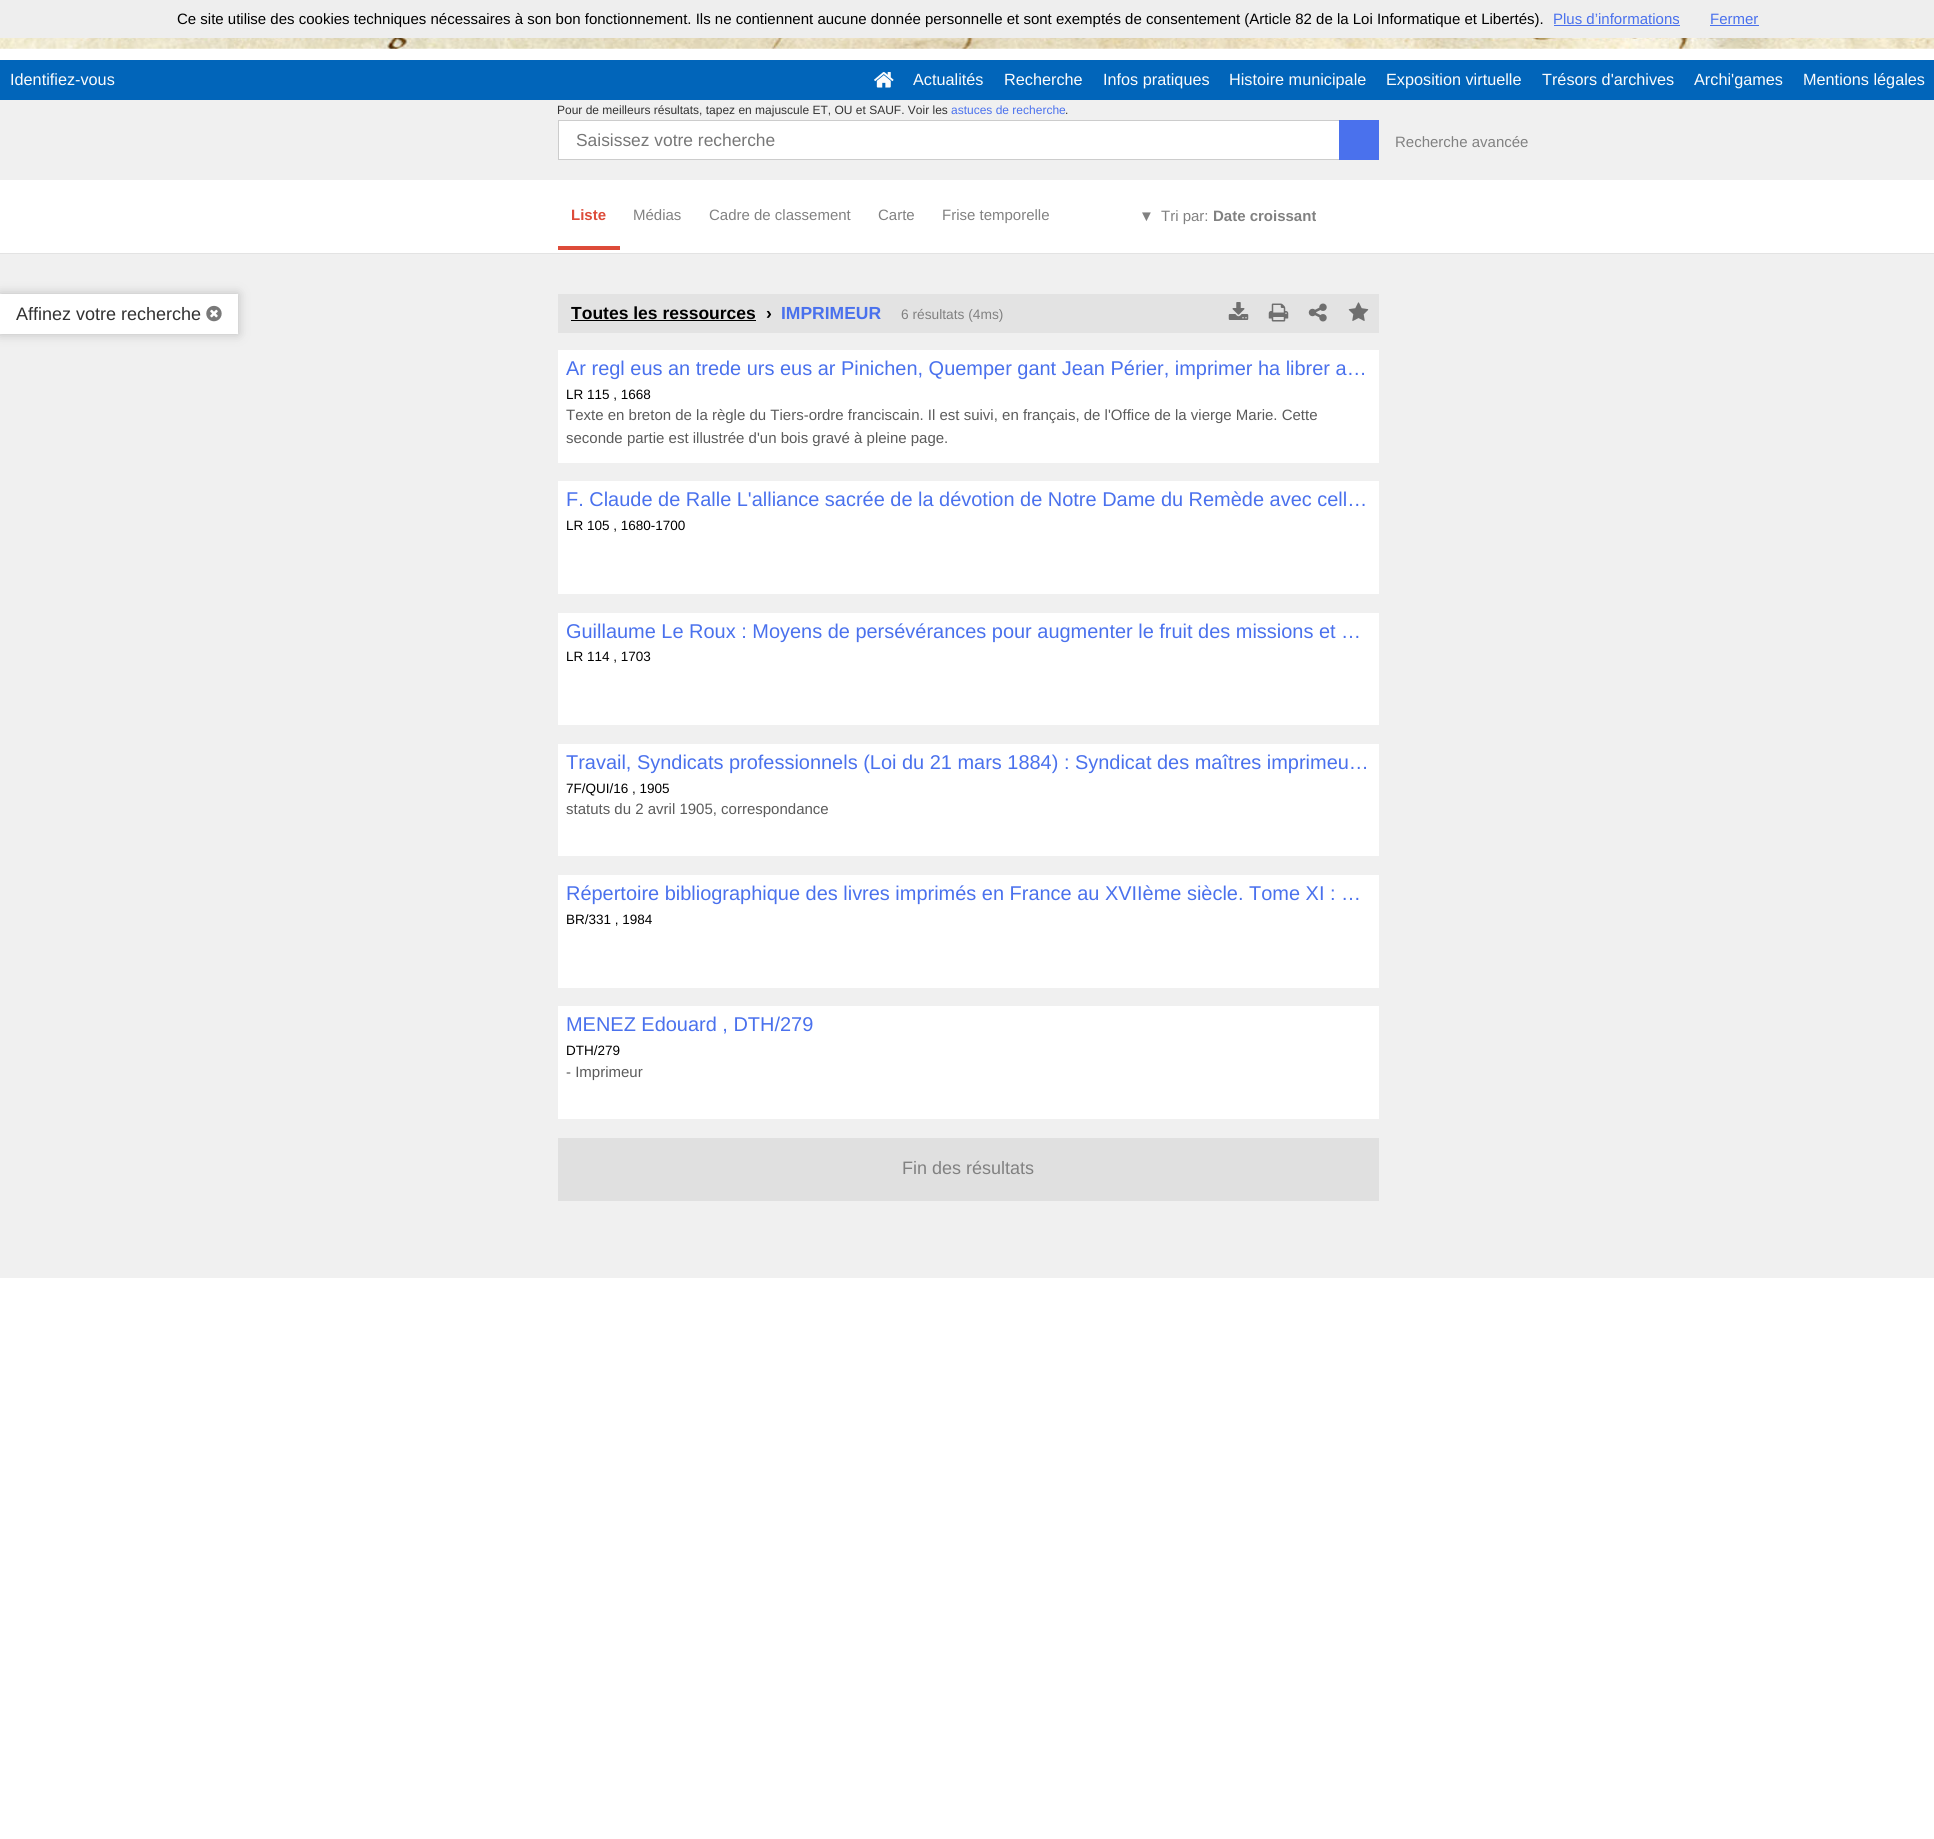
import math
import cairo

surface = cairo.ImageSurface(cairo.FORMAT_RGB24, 1934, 1839)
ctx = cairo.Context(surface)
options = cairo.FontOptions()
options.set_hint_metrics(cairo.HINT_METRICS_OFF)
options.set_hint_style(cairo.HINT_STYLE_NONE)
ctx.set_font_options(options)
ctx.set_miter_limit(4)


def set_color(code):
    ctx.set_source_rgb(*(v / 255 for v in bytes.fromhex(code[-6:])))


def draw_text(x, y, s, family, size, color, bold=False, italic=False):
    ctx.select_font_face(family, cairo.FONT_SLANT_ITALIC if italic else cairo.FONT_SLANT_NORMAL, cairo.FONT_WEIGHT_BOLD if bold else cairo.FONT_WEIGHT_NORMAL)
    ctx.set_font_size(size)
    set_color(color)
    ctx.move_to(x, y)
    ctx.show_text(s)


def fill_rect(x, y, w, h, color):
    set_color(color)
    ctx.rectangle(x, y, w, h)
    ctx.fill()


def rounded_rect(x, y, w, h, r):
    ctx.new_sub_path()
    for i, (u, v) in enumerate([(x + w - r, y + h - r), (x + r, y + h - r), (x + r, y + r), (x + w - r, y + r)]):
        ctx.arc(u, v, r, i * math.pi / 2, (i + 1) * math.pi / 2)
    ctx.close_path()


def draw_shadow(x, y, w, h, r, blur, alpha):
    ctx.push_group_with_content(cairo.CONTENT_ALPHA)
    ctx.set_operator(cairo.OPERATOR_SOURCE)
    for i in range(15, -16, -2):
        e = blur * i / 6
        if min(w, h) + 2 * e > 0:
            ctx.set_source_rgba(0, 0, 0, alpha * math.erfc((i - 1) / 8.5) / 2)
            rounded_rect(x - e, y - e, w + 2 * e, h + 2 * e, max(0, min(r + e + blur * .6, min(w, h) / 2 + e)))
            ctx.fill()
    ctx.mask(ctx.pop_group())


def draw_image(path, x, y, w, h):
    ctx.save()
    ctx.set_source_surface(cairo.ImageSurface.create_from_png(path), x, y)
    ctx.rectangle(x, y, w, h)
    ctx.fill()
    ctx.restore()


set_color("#ffffff")
ctx.paint()
fill_rect(0, 0, 1934, 38, "#eeeeee")
draw_text(177, 24, "Ce site utilise des cookies techniques nécessaires à son bon fonctionnement. Ils ne contiennent aucune donnée personnelle et sont exemptés de consentement (Article 82 de la Loi Informatique et Libertés).", "Liberation Sans", 15, "#000000")
draw_text(1553, 24, "Plus d’informations", "Liberation Sans", 15, "#4a71ed")
fill_rect(1554, 25, 126, 1, "#4970ec")
draw_text(1710, 24, "Fermer", "Liberation Sans", 15, "#4a71ed")
fill_rect(1710, 25, 49, 1, "#4970ec")
draw_image("assets/img1.png", 0, 38, 1934, 11)
fill_rect(0, 60, 1934, 40, "#0165ba")
draw_text(10, 85, "Identifiez-vous", "Liberation Sans", 16.25, "#fcfcfc")
draw_image("assets/img2.png", 874, 72, 20, 16)
draw_text(913, 85, "Actualités", "Liberation Sans", 16.25, "#fcfcfc")
draw_text(1004, 85, "Recherche", "Liberation Sans", 16.25, "#fcfcfc")
draw_text(1103, 85, "Infos pratiques", "Liberation Sans", 16.25, "#fcfcfc")
draw_text(1229, 85, "Histoire municipale", "Liberation Sans", 16.25, "#fcfcfc")
draw_text(1386, 85, "Exposition virtuelle", "Liberation Sans", 16.25, "#fcfcfc")
draw_text(1542, 85, "Trésors d'archives", "Liberation Sans", 16.25, "#fcfcfc")
draw_text(1694, 85, "Archi'games", "Liberation Sans", 16.25, "#fcfcfc")
draw_text(1803, 85, "Mentions légales", "Liberation Sans", 16.25, "#fcfcfc")
fill_rect(0, 100, 1934, 80, "#f0f0f0")
draw_text(557, 114, "Pour de meilleurs résultats, tapez en majuscule ET, OU et SAUF. Voir les", "Liberation Sans", 12, "#323232")
draw_text(951, 114, "astuces de recherche", "Liberation Sans", 12, "#4a71ed")
draw_text(1065, 114, ".", "Liberation Sans", 12, "#323232")
fill_rect(559, 121, 780, 38, "#ffffff")
ctx.rectangle(558.5, 120.5, 820, 39)
set_color("#cccccc")
ctx.set_line_width(1)
ctx.stroke()
draw_text(576, 146, "Saisissez votre recherche", "Liberation Sans", 17.4, "#777777")
fill_rect(1339, 120, 40, 40, "#4a71ed")
draw_text(1395, 147, "Recherche avancée", "Liberation Sans", 15, "#818181")
fill_rect(0, 253, 1934, 1, "#e3e3e3")
fill_rect(558, 246, 62, 4, "#dd4b39")
draw_text(571, 220, "Liste", "Liberation Sans", 15, "#dd4b39", bold=True)
draw_text(633, 220, "Médias", "Liberation Sans", 15, "#818181")
draw_text(709, 220, "Cadre de classement", "Liberation Sans", 15, "#818181")
draw_text(878, 220, "Carte", "Liberation Sans", 15, "#818181")
draw_text(942, 220, "Frise temporelle", "Liberation Sans", 15, "#818181")
draw_text(1139, 221, "▼", "Liberation Sans", 15, "#818181")
draw_text(1161, 221, "Tri par:", "Liberation Sans", 15, "#818181")
draw_text(1213, 221, "Date croissant", "Liberation Sans", 15, "#818181", bold=True)
fill_rect(0, 254, 1934, 1024, "#f0f0f0")
set_color("#bbbbbb")
draw_shadow(0, 294, 238, 40, 0, 5.5, 1)
fill_rect(0, 294, 238, 40, "#ffffff")
draw_text(16, 320, "Affinez votre recherche", "Liberation Sans", 18, "#323232")
draw_image("assets/img3.png", 206, 305, 16, 17)
fill_rect(558, 294, 821, 39, "#e3e3e3")
draw_text(571, 319, "Toutes les ressources", "Liberation Sans", 17.5, "#000000", bold=True)
fill_rect(571, 320, 185, 1, "#000000")
draw_text(766, 319, "›", "Liberation Sans", 17.5, "#000000", bold=True)
draw_text(781, 319, "IMPRIMEUR", "Liberation Sans", 17.5, "#4a71ed", bold=True)
draw_text(901, 319, "6 résultats (4ms)", "Liberation Sans", 13.75, "#818181")
draw_image("assets/img4.png", 1228, 302, 21, 18)
draw_image("assets/img5.png", 1268, 303, 21, 19)
draw_image("assets/img6.png", 1308, 303, 19, 19)
draw_image("assets/img7.png", 1348, 302, 21, 19)
fill_rect(558, 350, 821, 113, "#ffffff")
draw_text(566, 375, "Ar regl eus an trede urs eus ar Pinichen, Quemper gant Jean Périer, imprimer ha librer a…", "Liberation Sans", 19.95, "#4a71ed")
draw_text(566, 399, "LR 115 , 1668", "Liberation Sans", 13.5, "#000000")
draw_text(566, 420, "Texte en breton de la règle du Tiers-ordre franciscain. Il est suivi, en français, de l'Office de la vierge Marie. Cette", "Liberation Sans", 15, "#5b5b5b")
draw_text(566, 443, "seconde partie est illustrée d'un bois gravé à pleine page.", "Liberation Sans", 15, "#5b5b5b")
fill_rect(558, 481, 821, 113, "#ffffff")
draw_text(566, 506, "F. Claude de Ralle L'alliance sacrée de la dévotion de Notre Dame du Remède avec cell…", "Liberation Sans", 19.95, "#4a71ed")
draw_text(566, 530, "LR 105 , 1680-1700", "Liberation Sans", 13.5, "#000000")
fill_rect(558, 613, 821, 112, "#ffffff")
draw_text(566, 638, "Guillaume Le Roux : Moyens de persévérances pour augmenter le fruit des missions et …", "Liberation Sans", 19.95, "#4a71ed")
draw_text(566, 661, "LR 114 , 1703", "Liberation Sans", 13.5, "#000000")
fill_rect(558, 744, 821, 112, "#ffffff")
draw_text(566, 769, "Travail, Syndicats professionnels (Loi du 21 mars 1884) : Syndicat des maîtres imprimeu…", "Liberation Sans", 19.95, "#4a71ed")
draw_text(566, 793, "7F/QUI/16 , 1905", "Liberation Sans", 13.5, "#000000")
draw_text(566, 814, "statuts du 2 avril 1905, correspondance", "Liberation Sans", 15, "#5b5b5b")
fill_rect(558, 875, 821, 113, "#ffffff")
draw_text(566, 900, "Répertoire bibliographique des livres imprimés en France au XVIIème siècle. Tome XI : …", "Liberation Sans", 19.95, "#4a71ed")
draw_text(566, 924, "BR/331 , 1984", "Liberation Sans", 13.5, "#000000")
fill_rect(558, 1006, 821, 113, "#ffffff")
draw_text(566, 1031, "MENEZ Edouard , DTH/279", "Liberation Sans", 19.95, "#4a71ed")
draw_text(566, 1055, "DTH/279", "Liberation Sans", 13.5, "#000000")
draw_text(566, 1077, "- Imprimeur", "Liberation Sans", 15, "#5b5b5b")
fill_rect(558, 1138, 821, 63, "#e0e0e0")
draw_text(902, 1174, "Fin des résultats", "Liberation Sans", 18, "#818181")
surface.write_to_png("output.png")
